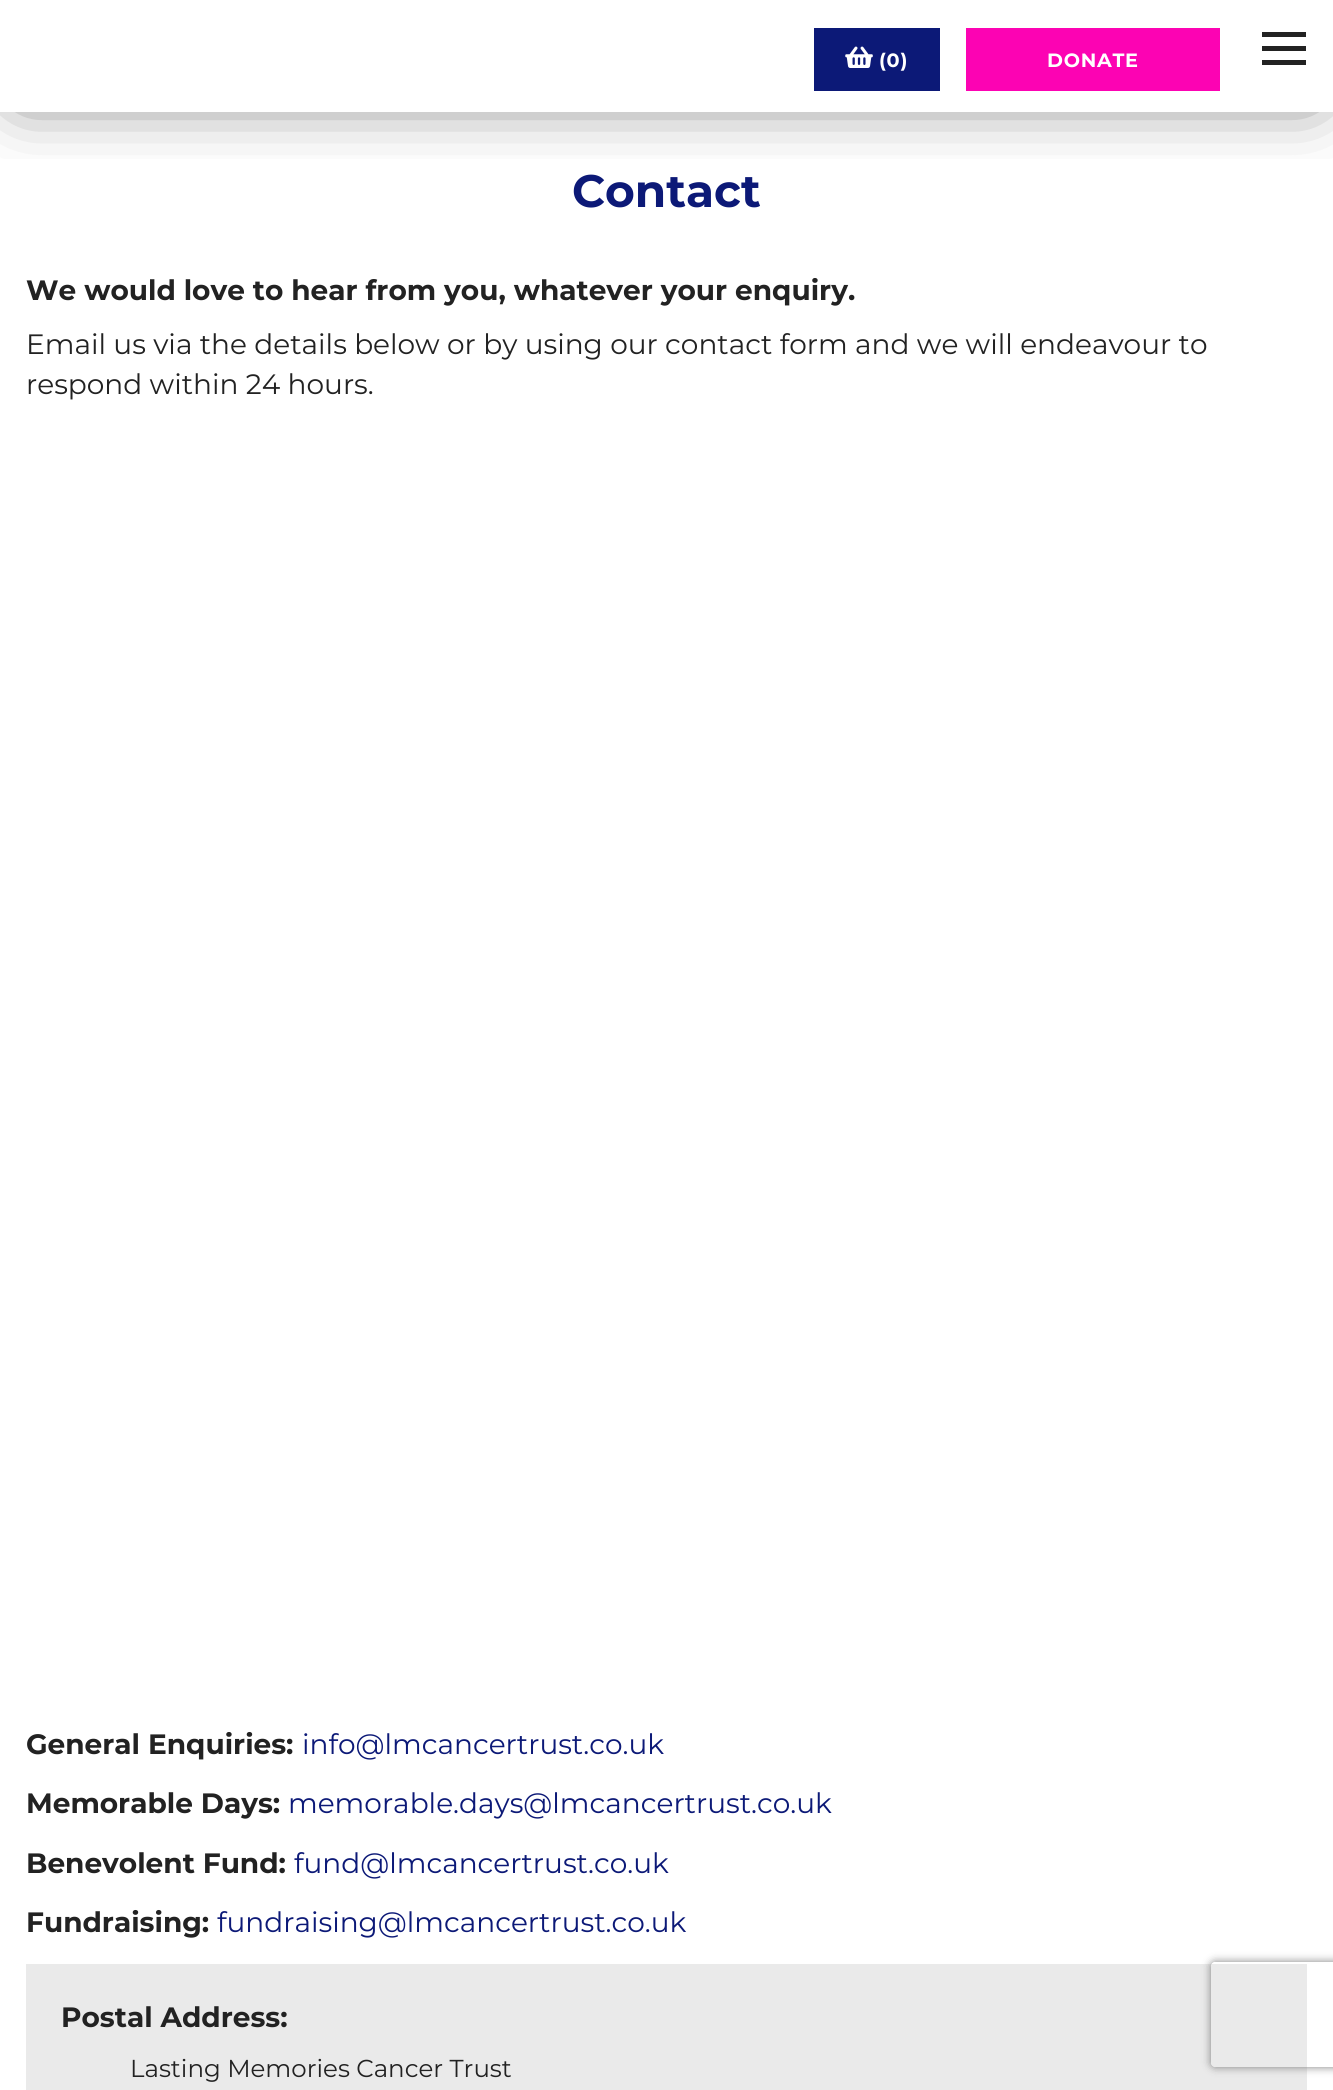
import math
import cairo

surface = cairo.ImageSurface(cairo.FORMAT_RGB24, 1333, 2090)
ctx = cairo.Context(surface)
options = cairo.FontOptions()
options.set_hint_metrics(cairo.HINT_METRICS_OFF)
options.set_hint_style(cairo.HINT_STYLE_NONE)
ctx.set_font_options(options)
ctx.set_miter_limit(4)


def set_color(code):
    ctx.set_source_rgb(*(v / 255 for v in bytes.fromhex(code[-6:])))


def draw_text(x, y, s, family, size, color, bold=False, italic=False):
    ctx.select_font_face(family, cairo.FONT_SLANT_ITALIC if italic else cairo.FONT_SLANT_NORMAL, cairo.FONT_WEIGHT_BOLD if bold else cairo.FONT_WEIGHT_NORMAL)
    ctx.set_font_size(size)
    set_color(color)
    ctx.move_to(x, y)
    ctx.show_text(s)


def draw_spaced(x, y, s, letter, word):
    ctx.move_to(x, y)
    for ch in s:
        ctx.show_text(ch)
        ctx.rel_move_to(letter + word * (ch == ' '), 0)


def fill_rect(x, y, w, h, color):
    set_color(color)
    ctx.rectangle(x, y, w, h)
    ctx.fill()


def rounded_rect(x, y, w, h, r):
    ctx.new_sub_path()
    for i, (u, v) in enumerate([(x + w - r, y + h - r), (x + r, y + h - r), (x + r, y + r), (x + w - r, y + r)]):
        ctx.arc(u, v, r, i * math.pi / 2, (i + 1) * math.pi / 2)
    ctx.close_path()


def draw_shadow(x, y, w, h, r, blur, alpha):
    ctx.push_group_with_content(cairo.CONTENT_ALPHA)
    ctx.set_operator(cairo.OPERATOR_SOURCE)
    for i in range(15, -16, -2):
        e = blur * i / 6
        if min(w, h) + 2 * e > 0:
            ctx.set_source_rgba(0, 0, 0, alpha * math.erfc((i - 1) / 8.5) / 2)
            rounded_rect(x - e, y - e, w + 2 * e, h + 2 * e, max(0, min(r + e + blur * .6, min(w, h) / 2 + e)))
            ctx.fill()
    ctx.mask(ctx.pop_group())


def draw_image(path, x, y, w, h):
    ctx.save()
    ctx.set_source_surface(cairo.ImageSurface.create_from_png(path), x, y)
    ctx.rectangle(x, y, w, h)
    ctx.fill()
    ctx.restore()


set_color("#ffffff")
ctx.paint()
ctx.save()
ctx.rectangle(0, 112, 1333, 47)
ctx.clip()
set_color("#000000")
draw_shadow(21, 21, 1292, 70, 0, 35, 0.75)
ctx.restore()
fill_rect(814, 28, 126, 63, "#0c1977")
draw_image("assets/img1.png", 845, 46, 28, 22)
ctx.select_font_face("Montserrat", cairo.FONT_SLANT_NORMAL, cairo.FONT_WEIGHT_BOLD)
ctx.set_font_size(19.25)
set_color("#ffffff")
draw_spaced(879, 67, "(0)", 0.75, 0)
fill_rect(966, 28, 254, 63, "#fc03b3")
set_color("#ffffff")
draw_spaced(1047, 67, "DONATE", 0.75, 0)
fill_rect(1262, 32, 44, 5, "#222222")
fill_rect(1262, 46, 44, 5, "#222222")
fill_rect(1262, 60, 44, 5, "#222222")
draw_text(572, 207, "Contact", "Montserrat", 45.5, "#0c1977", bold=True)
draw_text(26, 300, "We would love to hear from you, whatever your enquiry.", "Montserrat", 28, "#222222", bold=True)
draw_text(26, 354, "Email us via the details below or by using our contact form and we will endeavour to", "Montserrat", 28, "#222222")
draw_text(26, 394, "respond within 24 hours.", "Montserrat", 28, "#222222")
draw_text(26, 1754, "General Enquiries:", "Montserrat", 28, "#222222", bold=True)
draw_text(302, 1754, "info@lmcancertrust.co.uk", "Montserrat", 28, "#0c1977")
draw_text(26, 1813, "Memorable Days:", "Montserrat", 28, "#222222", bold=True)
draw_text(288, 1813, "memorable.days@lmcancertrust.co.uk", "Montserrat", 28, "#0c1977")
draw_text(26, 1873, "Benevolent Fund:", "Montserrat", 28, "#222222", bold=True)
draw_text(294, 1873, "fund@lmcancertrust.co.uk", "Montserrat", 28, "#0c1977")
draw_text(26, 1932, "Fundraising:", "Montserrat", 28, "#222222", bold=True)
draw_text(217, 1932, "fundraising@lmcancertrust.co.uk", "Montserrat", 28, "#0c1977")
fill_rect(26, 1964, 1281, 126, "#eaeaea")
draw_text(61, 2027, "Postal Address:", "Montserrat", 28, "#222222", bold=True)
draw_text(130, 2077, "Lasting Memories Cancer Trust", "Montserrat", 24.5, "#222222")
ctx.save()
ctx.set_fill_rule(cairo.FILL_RULE_EVEN_ODD)
ctx.new_path()
ctx.move_to(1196, 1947)
ctx.line_to(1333, 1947)
ctx.line_to(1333, 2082)
ctx.line_to(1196, 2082)
ctx.close_path()
ctx.move_to(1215, 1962)
ctx.line_to(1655, 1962)
ctx.curve_to(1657, 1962, 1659, 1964, 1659, 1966)
ctx.line_to(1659, 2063)
ctx.curve_to(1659, 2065, 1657, 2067, 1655, 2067)
ctx.line_to(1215, 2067)
ctx.curve_to(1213, 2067, 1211, 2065, 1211, 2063)
ctx.line_to(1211, 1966)
ctx.curve_to(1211, 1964, 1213, 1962, 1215, 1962)
ctx.close_path()
ctx.clip()
set_color("#808080")
draw_shadow(1211, 1962, 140, 105, 4, 4.5, 1)
ctx.restore()
surface.write_to_png("output.png")
